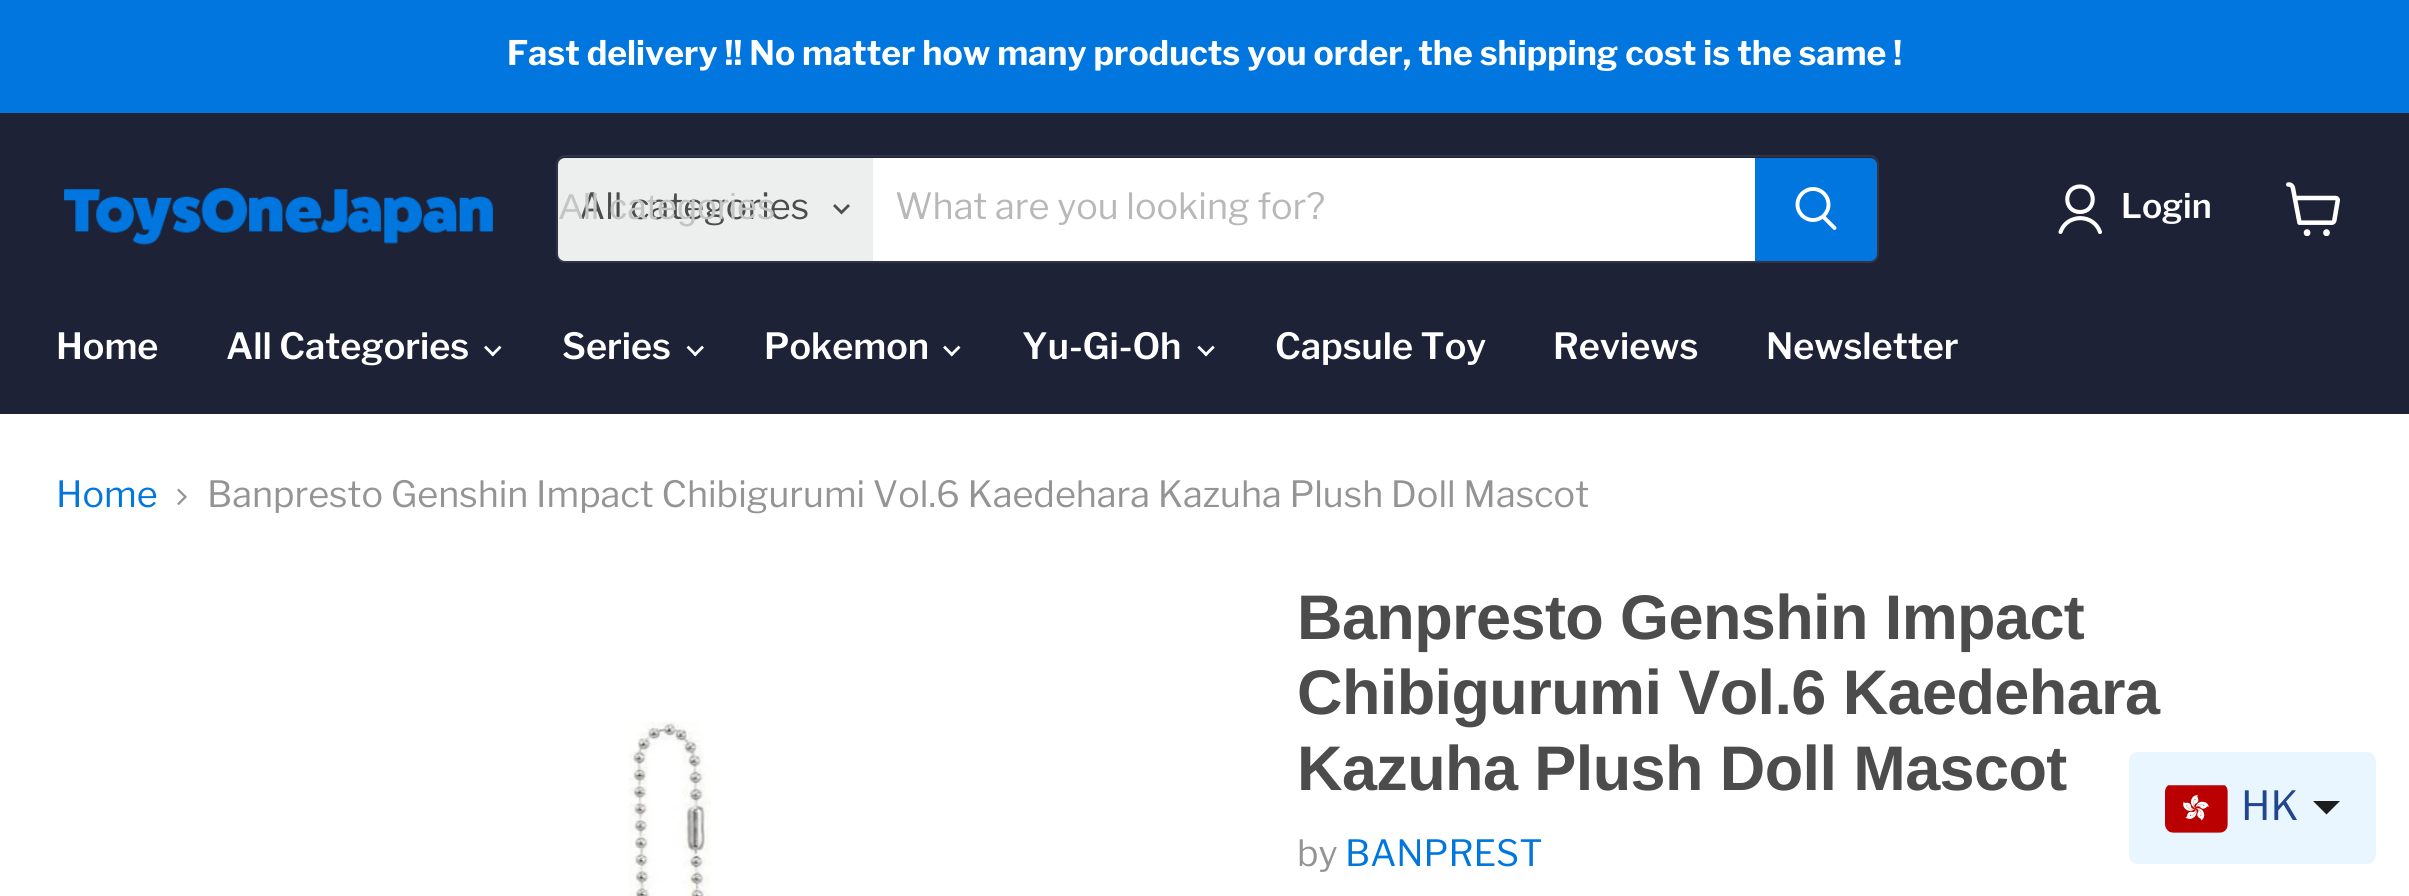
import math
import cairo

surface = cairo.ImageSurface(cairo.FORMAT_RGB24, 2409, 896)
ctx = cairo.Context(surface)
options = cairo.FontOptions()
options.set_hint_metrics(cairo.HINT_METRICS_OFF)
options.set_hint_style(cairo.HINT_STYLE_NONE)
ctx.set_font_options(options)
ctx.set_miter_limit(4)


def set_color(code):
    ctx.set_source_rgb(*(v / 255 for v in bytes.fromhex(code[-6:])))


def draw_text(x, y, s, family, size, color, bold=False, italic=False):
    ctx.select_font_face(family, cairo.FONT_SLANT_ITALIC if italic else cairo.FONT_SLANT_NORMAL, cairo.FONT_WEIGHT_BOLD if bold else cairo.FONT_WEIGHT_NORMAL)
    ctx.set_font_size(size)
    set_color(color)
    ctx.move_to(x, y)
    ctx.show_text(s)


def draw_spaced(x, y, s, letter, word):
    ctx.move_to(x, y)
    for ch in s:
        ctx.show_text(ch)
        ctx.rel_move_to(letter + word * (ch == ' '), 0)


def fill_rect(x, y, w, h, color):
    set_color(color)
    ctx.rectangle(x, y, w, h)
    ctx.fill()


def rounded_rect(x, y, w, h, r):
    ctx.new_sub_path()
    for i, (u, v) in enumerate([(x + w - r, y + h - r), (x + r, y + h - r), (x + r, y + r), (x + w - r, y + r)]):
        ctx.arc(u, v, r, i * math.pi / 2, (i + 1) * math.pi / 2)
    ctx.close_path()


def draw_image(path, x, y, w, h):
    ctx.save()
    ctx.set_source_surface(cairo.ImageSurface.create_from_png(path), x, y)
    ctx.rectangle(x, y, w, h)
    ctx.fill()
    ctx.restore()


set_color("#ffffff")
ctx.paint()
fill_rect(0, 0, 2409, 113, "#0076de")
draw_text(507, 65, "Fast delivery !! No matter how many products you order, the shipping cost is the same !", "Libre Franklin", 33.75, "#ffffff", bold=True)
fill_rect(0, 113, 2409, 301, "#1d2236")
draw_image("assets/img1.png", 64, 187, 429, 58)
rounded_rect(557, 156, 1321, 106, 8)
ctx.set_source_rgba(0.502, 0.502, 0.502, 0.2)
ctx.stroke()
set_color("#edeeee")
ctx.new_path()
ctx.move_to(565, 158)
ctx.line_to(873, 158)
ctx.line_to(873, 261)
ctx.line_to(565, 261)
ctx.curve_to(561, 261, 558, 258, 558, 254)
ctx.line_to(558, 165)
ctx.curve_to(558, 161, 561, 158, 565, 158)
ctx.close_path()
ctx.fill()
draw_text(579, 219, "All categories", "Libre Franklin", 36, "#4c4c4c")
draw_text(559, 219, "All categories", "Liberation Sans", 36, "#c4c4c4")
ctx.new_path()
ctx.move_to(841.5, 212.5)
ctx.line_to(848, 206)
ctx.move_to(841.5, 212.5)
ctx.line_to(835, 206)
set_color("#4d4d4d")
ctx.set_line_width(2.8)
ctx.set_line_cap(cairo.LINE_CAP_SQUARE)
ctx.stroke()
fill_rect(873, 158, 882, 103, "#ffffff")
draw_text(895, 219, "What are you looking for?", "Libre Franklin", 36, "#b8b8b8")
set_color("#0076de")
ctx.new_path()
ctx.move_to(1756, 159)
ctx.line_to(1870, 159)
ctx.curve_to(1873.5, 159, 1876, 161.5, 1876, 165)
ctx.line_to(1876, 254)
ctx.curve_to(1876, 257.5, 1873.5, 260, 1870, 260)
ctx.line_to(1756, 260)
ctx.close_path()
ctx.fill_preserve()
ctx.set_line_width(2)
ctx.set_line_cap(cairo.LINE_CAP_BUTT)
ctx.stroke()
ctx.new_path()
ctx.move_to(1834.5, 228)
ctx.line_to(1823.5, 217)
set_color("#ffffff")
ctx.set_line_width(3.9)
ctx.set_line_cap(cairo.LINE_CAP_ROUND)
ctx.stroke()
ctx.arc(1813, 204.5, 15.5, 0, 2 * math.pi)
ctx.set_line_cap(cairo.LINE_CAP_BUTT)
ctx.stroke()
ctx.new_path()
ctx.move_to(2080, 212)
ctx.curve_to(2097, 212, 2097, 186.5, 2080, 186.5)
ctx.curve_to(2063, 186.5, 2063, 212, 2080, 212)
ctx.close_path()
ctx.move_to(2100, 232)
ctx.curve_to(2093.5, 213.5, 2067, 213.5, 2060.5, 232)
ctx.set_line_width(4.1)
ctx.set_line_cap(cairo.LINE_CAP_ROUND)
ctx.set_line_join(cairo.LINE_JOIN_ROUND)
ctx.stroke()
draw_text(2121, 218, "Login", "Libre Franklin SemiBold", 33.75, "#ffffff")
draw_image("assets/img2.png", 2286, 182, 54, 54)
draw_text(56, 359, "Home", "Libre Franklin SemiBold", 36, "#ffffff")
draw_text(226, 359, "All Categories", "Libre Franklin SemiBold", 36, "#ffffff")
draw_image("assets/img3.png", 484, 345, 18, 12)
draw_text(562, 359, "Series", "Libre Franklin SemiBold", 36, "#ffffff")
draw_image("assets/img4.png", 686, 345, 18, 12)
draw_text(764, 359, "Pokemon", "Libre Franklin SemiBold", 36, "#ffffff")
draw_image("assets/img3.png", 943, 345, 18, 12)
draw_text(1022, 359, "Yu-Gi-Oh", "Libre Franklin SemiBold", 36, "#ffffff")
draw_image("assets/img5.png", 1197, 345, 18, 12)
draw_text(1275, 359, "Capsule Toy", "Libre Franklin SemiBold", 36, "#ffffff")
draw_text(1553, 359, "Reviews", "Libre Franklin SemiBold", 36, "#ffffff")
draw_text(1766, 359, "Newsletter", "Libre Franklin SemiBold", 36, "#ffffff")
draw_text(56, 507, "Home", "Libre Franklin", 36, "#0076de")
draw_image("assets/img6.png", 177, 488, 10, 17)
draw_text(207, 507, "Banpresto Genshin Impact Chibigurumi Vol.6 Kaedehara Kazuha Plush Doll Mascot", "Libre Franklin", 36, "#949494")
draw_image("assets/img7.png", 628, 722, 83, 174)
ctx.select_font_face("Arimo", cairo.FONT_SLANT_NORMAL, cairo.FONT_WEIGHT_BOLD)
ctx.set_font_size(63)
set_color("#4c4c4c")
draw_spaced(1297, 639, "Banpresto Genshin Impact", -0.6, 0)
draw_spaced(1297, 714, "Chibigurumi Vol.6 Kaedehara", -0.6, 0)
draw_spaced(1297, 790, "Kazuha Plush Doll Mascot", -0.6, 0)
draw_text(1297, 866, "by", "Libre Franklin", 36, "#949494")
draw_text(1345, 866, "BANPREST", "Libre Franklin", 36, "#0076de")
set_color("#eaf6ff")
rounded_rect(2129, 752, 247, 112, 9)
ctx.fill()
draw_image("assets/img8.png", 2165, 785, 63, 48)
draw_text(2241, 820, "HK", "Libre Franklin", 40, "#20468d")
set_color("#1d1d1d")
ctx.new_path()
ctx.move_to(2313, 801)
ctx.line_to(2340, 801)
ctx.line_to(2326.5, 814.5)
ctx.close_path()
ctx.fill()
surface.write_to_png("output.png")
